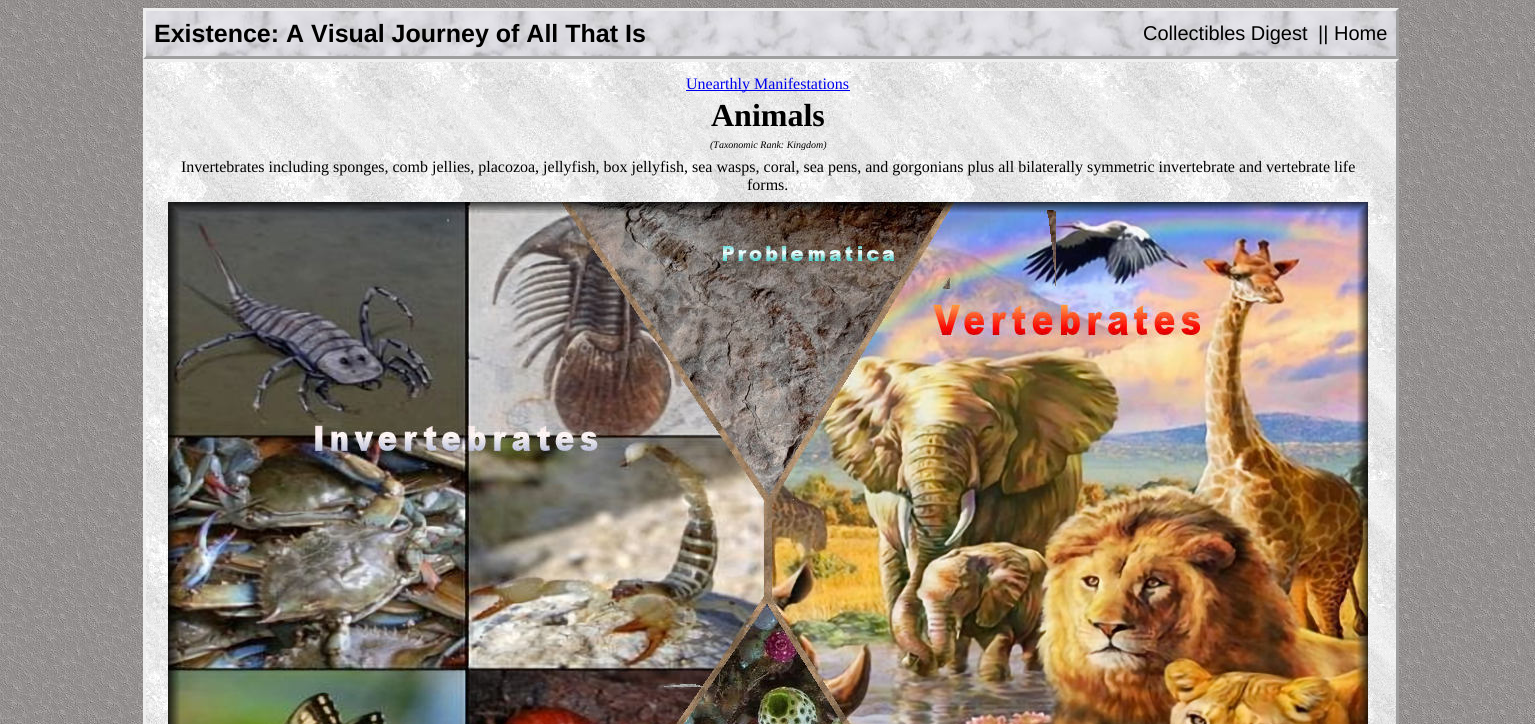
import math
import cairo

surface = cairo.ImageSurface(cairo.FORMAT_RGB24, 1535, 724)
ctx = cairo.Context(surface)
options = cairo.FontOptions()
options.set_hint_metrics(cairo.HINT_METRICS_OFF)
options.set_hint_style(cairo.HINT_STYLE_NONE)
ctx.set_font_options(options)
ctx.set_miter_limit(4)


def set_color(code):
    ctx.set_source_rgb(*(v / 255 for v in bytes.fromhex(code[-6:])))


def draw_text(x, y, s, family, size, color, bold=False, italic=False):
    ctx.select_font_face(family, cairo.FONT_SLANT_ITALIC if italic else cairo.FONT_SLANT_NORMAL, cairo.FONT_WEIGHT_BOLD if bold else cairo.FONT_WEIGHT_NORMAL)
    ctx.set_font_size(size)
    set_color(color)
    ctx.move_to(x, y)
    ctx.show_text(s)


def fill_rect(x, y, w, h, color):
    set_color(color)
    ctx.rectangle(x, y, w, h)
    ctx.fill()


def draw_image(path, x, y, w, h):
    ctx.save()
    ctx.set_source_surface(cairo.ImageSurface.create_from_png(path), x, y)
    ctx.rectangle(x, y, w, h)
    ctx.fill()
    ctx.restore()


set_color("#ffffff")
ctx.paint()
draw_image("assets/img1.png", 0, 0, 1535, 724)
draw_image("assets/img2.png", 143, 8, 1256, 51)
set_color("#eeeeee")
ctx.new_path()
ctx.move_to(143, 8)
ctx.line_to(1399, 8)
ctx.line_to(1396, 11)
ctx.line_to(146, 11)
ctx.close_path()
ctx.fill()
set_color("#9f9f9f")
ctx.new_path()
ctx.move_to(1399, 8)
ctx.line_to(1399, 59)
ctx.line_to(1396, 56)
ctx.line_to(1396, 11)
ctx.close_path()
ctx.fill()
ctx.new_path()
ctx.move_to(1399, 59)
ctx.line_to(143, 59)
ctx.line_to(146, 56)
ctx.line_to(1396, 56)
ctx.close_path()
ctx.fill()
set_color("#eeeeee")
ctx.new_path()
ctx.move_to(143, 59)
ctx.line_to(143, 8)
ctx.line_to(146, 11)
ctx.line_to(146, 56)
ctx.close_path()
ctx.fill()
draw_text(154, 42, "Existence: A Visual Journey of All That Is", "Liberation Sans", 25, "#000000", bold=True)
draw_text(1143, 40, "Collectibles Digest", "Liberation Sans", 20, "#000000")
draw_text(1318, 40, "|| Home", "Liberation Sans", 20, "#000000")
draw_image("assets/img3.png", 143, 59, 1256, 665)
set_color("#eeeeee")
ctx.new_path()
ctx.move_to(143, 59)
ctx.line_to(1399, 59)
ctx.line_to(1396, 62)
ctx.line_to(146, 62)
ctx.close_path()
ctx.fill()
set_color("#9f9f9f")
ctx.new_path()
ctx.move_to(1399, 59)
ctx.line_to(1399, 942)
ctx.line_to(1396, 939)
ctx.line_to(1396, 62)
ctx.close_path()
ctx.fill()
set_color("#eeeeee")
ctx.new_path()
ctx.move_to(143, 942)
ctx.line_to(143, 59)
ctx.line_to(146, 62)
ctx.line_to(146, 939)
ctx.close_path()
ctx.fill()
fill_rect(686, 90, 164, 1, "#0000ee")
draw_text(686, 89, "Unearthly Manifestations", "Liberation Serif", 16, "#0000ee")
draw_text(711, 126, "Animals", "Liberation Serif", 32, "#000000", bold=True)
draw_text(710, 148, "(Taxonomic Rank: Kingdom)", "Liberation Serif", 10, "#000000", italic=True)
draw_text(181, 172, "Invertebrates including sponges, comb jellies, placozoa, jellyfish, box jellyfish, sea wasps, coral, sea pens, and gorgonians plus all bilaterally symmetric invertebrate and vertebrate life", "Liberation Serif", 16, "#000000")
draw_text(747, 190, "forms.", "Liberation Serif", 16, "#000000")
draw_image("assets/img4.png", 168, 202, 1200, 522)
surface.write_to_png("output.png")
